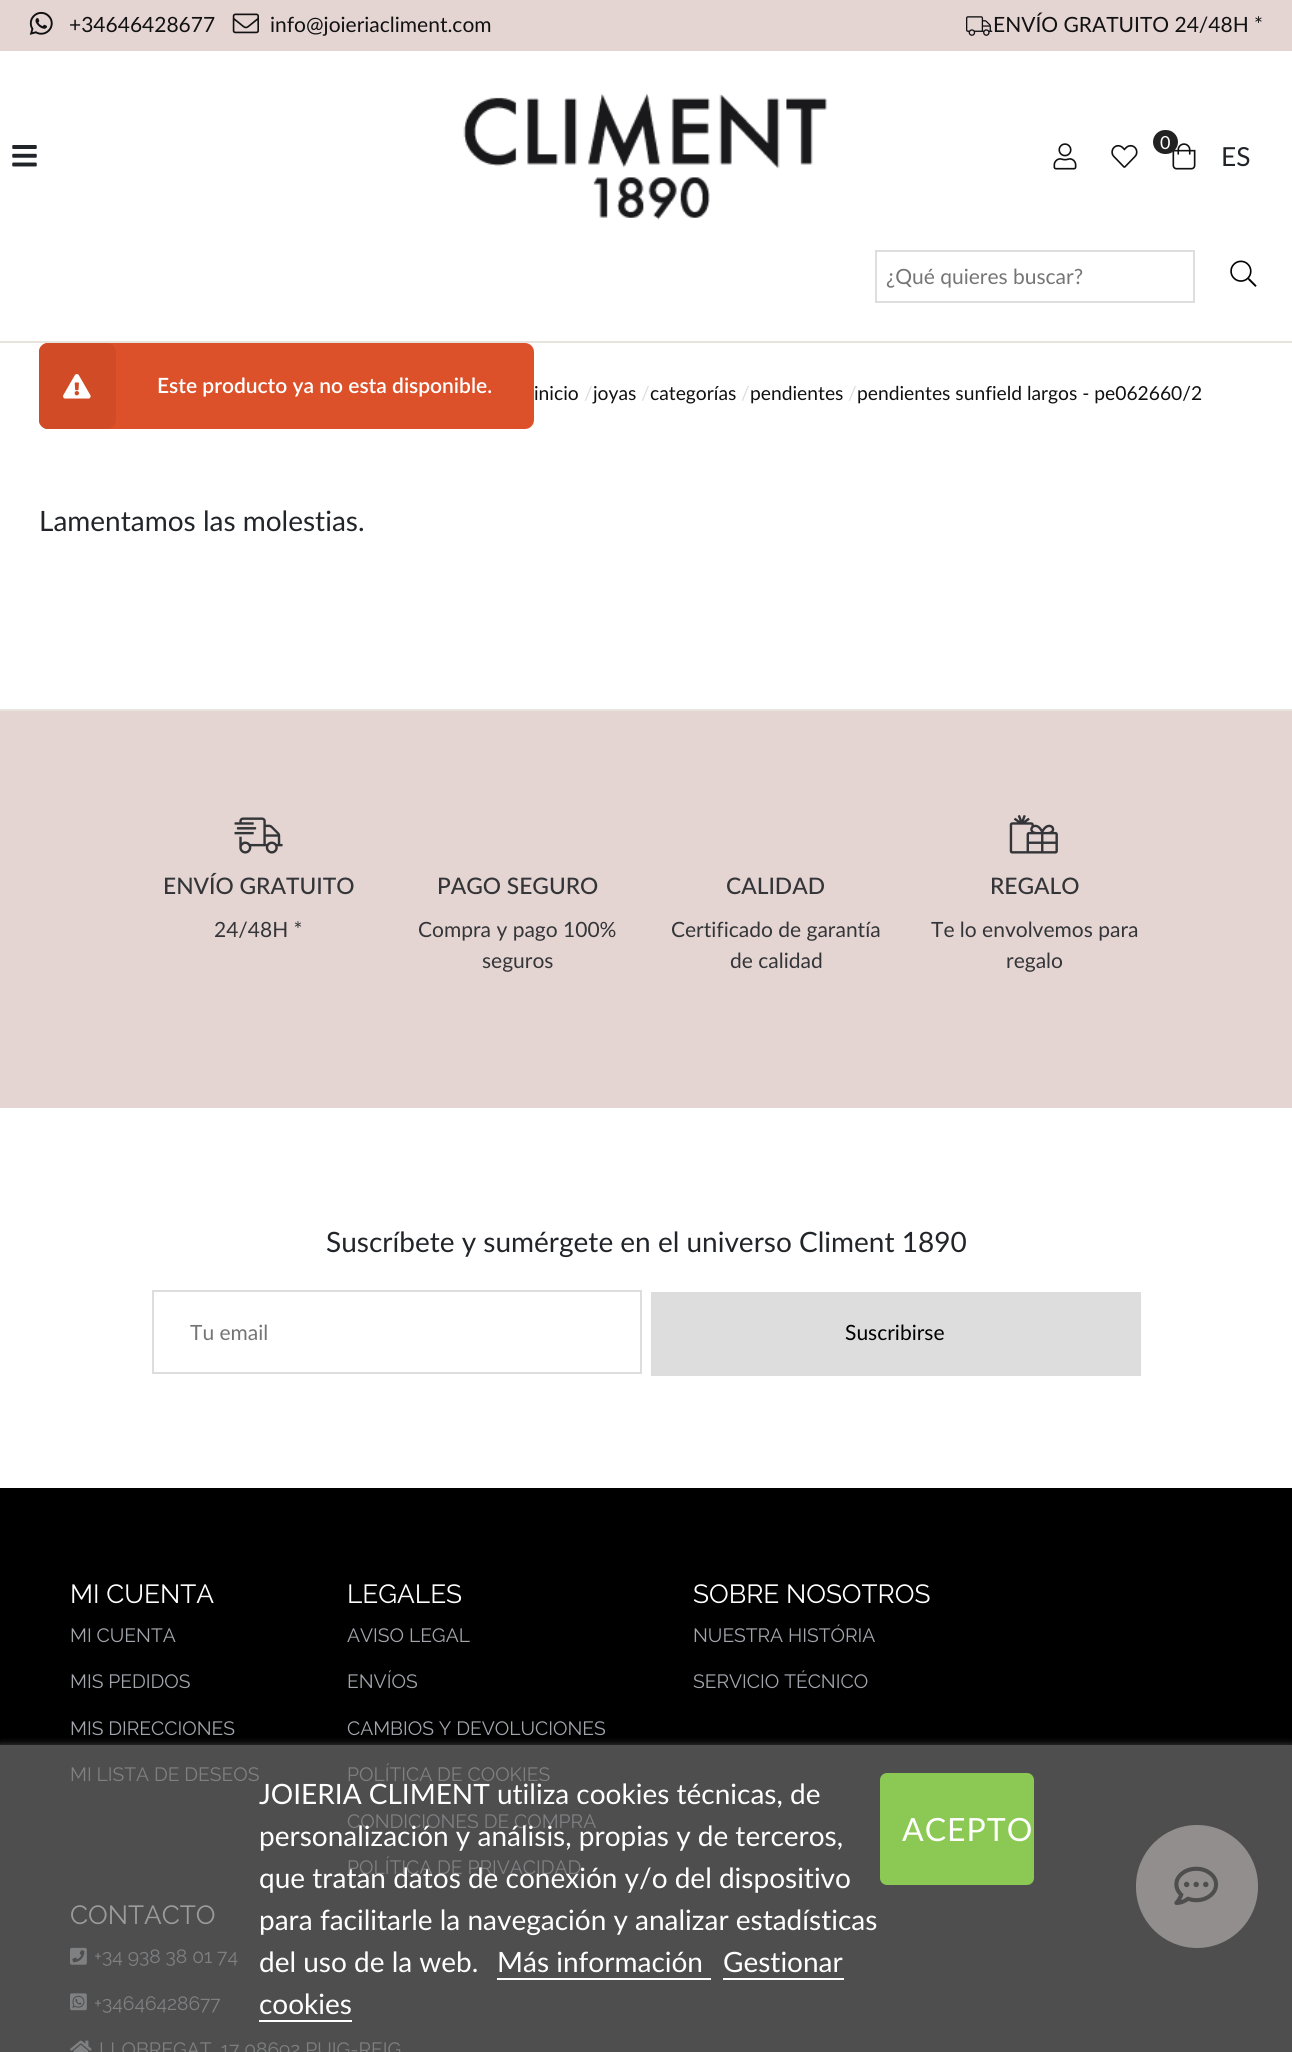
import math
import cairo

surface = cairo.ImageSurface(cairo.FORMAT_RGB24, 1292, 2052)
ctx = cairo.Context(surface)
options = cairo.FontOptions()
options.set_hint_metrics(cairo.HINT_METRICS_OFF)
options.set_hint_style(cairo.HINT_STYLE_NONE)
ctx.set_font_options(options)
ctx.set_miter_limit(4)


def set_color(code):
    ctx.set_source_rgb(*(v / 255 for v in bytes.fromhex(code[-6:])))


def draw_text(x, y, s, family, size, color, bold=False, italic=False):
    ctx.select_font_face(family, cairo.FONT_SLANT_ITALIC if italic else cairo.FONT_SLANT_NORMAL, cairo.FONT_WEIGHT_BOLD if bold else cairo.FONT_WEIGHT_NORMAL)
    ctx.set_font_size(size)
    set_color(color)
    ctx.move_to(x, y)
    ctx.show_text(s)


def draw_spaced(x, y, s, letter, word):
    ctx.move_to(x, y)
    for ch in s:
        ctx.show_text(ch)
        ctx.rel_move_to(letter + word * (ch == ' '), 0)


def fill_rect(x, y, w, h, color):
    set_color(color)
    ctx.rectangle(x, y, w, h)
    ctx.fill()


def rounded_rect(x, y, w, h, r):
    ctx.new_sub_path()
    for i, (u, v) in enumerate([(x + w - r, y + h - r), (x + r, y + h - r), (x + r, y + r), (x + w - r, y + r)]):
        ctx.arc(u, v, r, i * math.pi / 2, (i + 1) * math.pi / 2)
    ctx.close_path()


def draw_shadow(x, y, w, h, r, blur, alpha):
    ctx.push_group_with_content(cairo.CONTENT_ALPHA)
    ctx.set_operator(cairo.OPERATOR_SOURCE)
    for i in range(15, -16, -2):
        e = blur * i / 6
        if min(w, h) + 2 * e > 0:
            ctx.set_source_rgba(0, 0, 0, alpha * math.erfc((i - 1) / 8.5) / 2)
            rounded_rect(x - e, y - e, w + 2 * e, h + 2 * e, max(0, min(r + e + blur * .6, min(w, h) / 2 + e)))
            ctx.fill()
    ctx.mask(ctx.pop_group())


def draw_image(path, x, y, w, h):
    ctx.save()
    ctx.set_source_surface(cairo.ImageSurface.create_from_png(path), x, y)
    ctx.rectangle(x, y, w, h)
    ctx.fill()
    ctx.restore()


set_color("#ffffff")
ctx.paint()
fill_rect(0, 0, 1292, 51, "#e4d5d3")
draw_image("assets/img1.png", 29, 11, 24, 24)
draw_text(69, 32, "+34646428677", "Lato", 21, "#111111")
draw_image("assets/img2.png", 232, 13, 27, 21)
draw_text(270, 32, "info@joieriacliment.com", "Lato", 21, "#111111")
draw_image("assets/img3.png", 966, 16, 27, 20)
draw_text(993, 32, "ENVÍO GRATUITO 24/48H *", "Lato", 21, "#111111")
fill_rect(0, 1745, 1292, 307, "#4e4e4e")
set_color("#938e8e")
rounded_rect(1136, 1825, 122, 123, 61)
ctx.fill()
draw_image("assets/img4.png", 1174, 1866, 45, 39)
fill_rect(0, 341, 1292, 2, "#e6e4dd")
draw_image("assets/img5.png", 12, 145, 25, 22)
draw_image("assets/img6.png", 463, 93, 365, 127)
draw_image("assets/img7.png", 1053, 143, 24, 27)
draw_image("assets/img8.png", 1111, 144, 27, 24)
draw_image("assets/img9.png", 1172, 143, 24, 27)
set_color("#222222")
rounded_rect(1153, 130, 25, 24, 12)
ctx.fill()
draw_text(1160, 149, "0", "Lato", 18, "#ffffff")
draw_text(1221, 166, "ES", "Lato", 26.25, "#212529")
ctx.rectangle(876, 251, 318, 51)
set_color("#dedede")
ctx.stroke()
draw_text(886, 284, "¿Qué quieres buscar?", "Lato", 21, "#757575")
draw_image("assets/img10.png", 1230, 260, 27, 27)
set_color("#dd512a")
rounded_rect(39, 343, 495, 86, 9)
ctx.fill()
set_color("#d14c26")
rounded_rect(39, 343, 77, 86, 9)
ctx.fill()
draw_image("assets/img11.png", 63, 374, 28, 25)
draw_text(157, 393, "Este producto ya no esta disponible.", "Lato SemiBold", 21, "#ffffff")
draw_text(534, 400, "inicio", "Lato", 19.25, "#111111")
draw_text(584, 400, "/", "Lato", 19.25, "#dedede")
draw_text(593, 400, "joyas", "Lato", 19.25, "#111111")
draw_text(641, 400, "/", "Lato", 19.25, "#dedede")
draw_text(650, 400, "categorías", "Lato", 19.25, "#111111")
draw_text(741, 400, "/", "Lato", 19.25, "#dedede")
draw_text(750, 400, "pendientes", "Lato", 19.25, "#111111")
draw_text(848, 400, "/", "Lato", 19.25, "#dedede")
draw_text(857, 400, "pendientes sunfield largos - pe062660/2", "Lato", 19.25, "#111111")
draw_text(39, 531, "Lamentamos las molestias.", "Lato", 28, "#212529")
fill_rect(0, 709, 1292, 2, "#e6e4dd")
fill_rect(0, 711, 1292, 397, "#e4d5d3")
draw_image("assets/img12.png", 234, 817, 49, 37)
draw_text(163, 894, "ENVÍO GRATUITO", "Lato Medium", 22.75, "#343538")
draw_text(214, 937, "24/48H *", "Lato", 21, "#343538")
draw_text(437, 894, "PAGO SEGURO", "Lato Medium", 22.75, "#343538")
draw_text(418, 937, "Compra y pago 100%", "Lato", 21, "#343538")
draw_text(482, 968, "seguros", "Lato", 21, "#343538")
draw_text(726, 894, "CALIDAD", "Lato Medium", 22.75, "#343538")
draw_text(671, 937, "Certificado de garantía", "Lato", 21, "#343538")
draw_text(730, 968, "de calidad", "Lato", 21, "#343538")
draw_image("assets/img13.png", 1009, 815, 49, 39)
draw_text(990, 894, "REGALO", "Lato Medium", 22.75, "#343538")
draw_text(931, 937, "Te lo envolvemos para", "Lato", 21, "#343538")
draw_text(1006, 968, "regalo", "Lato", 21, "#343538")
draw_text(326, 1252, "Suscríbete y sumérgete en el universo Climent 1890", "Lato", 28, "#212529")
ctx.rectangle(153, 1291, 488, 82)
set_color("#dddddd")
ctx.stroke()
draw_text(190, 1340, "Tu email", "Lato", 21, "#757575")
fill_rect(651, 1292, 490, 84, "#dddddd")
draw_text(845, 1340, "Suscribirse", "Lato", 21, "#000000")
fill_rect(0, 1488, 1292, 257, "#000000")
draw_text(70, 1603, "MI CUENTA", "Raleway", 26.25, "#ffffff")
draw_text(70, 1642, "MI CUENTA", "Raleway", 19.25, "#a3a5ad")
draw_text(70, 1688, "MIS PEDIDOS", "Raleway", 19.25, "#a3a5ad")
draw_text(70, 1735, "MIS DIRECCIONES", "Raleway", 19.25, "#a3a5ad")
draw_text(70, 1781, "MI LISTA DE DESEOS", "Raleway", 19.25, "#7f8082")
draw_text(347, 1603, "LEGALES", "Raleway", 26.25, "#ffffff")
draw_text(347, 1642, "AVISO LEGAL", "Raleway", 19.25, "#a3a5ad")
draw_text(347, 1688, "ENVÍOS", "Raleway", 19.25, "#a3a5ad")
draw_text(347, 1735, "CAMBIOS Y DEVOLUCIONES", "Raleway", 19.25, "#a3a5ad")
draw_text(347, 1781, "POLÍTICA DE COOKIES", "Raleway", 19.25, "#7f8082")
draw_text(347, 1828, "CONDICIONES DE COMPRA", "Raleway", 19.25, "#7f8082")
draw_text(347, 1874, "POLÍTICA DE PRIVACIDAD", "Raleway", 19.25, "#7f8082")
draw_text(693, 1603, "SOBRE NOSOTROS", "Raleway", 26.25, "#ffffff")
draw_text(693, 1642, "NUESTRA HISTÓRIA", "Raleway", 19.25, "#a3a5ad")
draw_text(693, 1688, "SERVICIO TÉCNICO", "Raleway", 19.25, "#a3a5ad")
draw_text(70, 1924, "CONTACTO", "Raleway", 26.25, "#9b9b9b")
draw_image("assets/img14.png", 70, 1947, 17, 18)
draw_text(94, 1963, "+34 938 38 01 74", "Raleway", 19.25, "#7f8082")
draw_image("assets/img15.png", 70, 1993, 17, 18)
draw_text(94, 2010, "+34646428677", "Raleway", 19.25, "#7f8082")
draw_image("assets/img16.png", 70, 2040, 22, 12)
draw_text(99, 2056, "LLOBREGAT, 17 08692 PUIG-REIG", "Raleway", 19.25, "#7f8082")
ctx.save()
ctx.rectangle(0, 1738, 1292, 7)
ctx.clip()
set_color("#707070")
draw_shadow(0, 1747, 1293, 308, 0, 4.5, 1)
ctx.restore()
draw_text(259, 1804, "JOIERIA CLIMENT utiliza cookies técnicas, de", "Lato", 28, "#ffffff")
draw_text(259, 1846, "personalización y análisis, propias y de terceros,", "Lato", 28, "#ffffff")
draw_text(259, 1888, "que tratan datos de conexión y/o del dispositivo", "Lato", 28, "#ffffff")
draw_text(259, 1930, "para facilitarle la navegación y analizar estadísticas", "Lato", 28, "#ffffff")
draw_text(259, 1972, "del uso de la web.", "Lato", 28, "#ffffff")
draw_text(497, 1972, "Más información", "Lato", 28, "#ffffff")
fill_rect(497, 1978, 214, 2, "#ffffff")
draw_text(723, 1972, "Gestionar", "Lato", 28, "#ffffff")
fill_rect(723, 1978, 121, 2, "#ffffff")
draw_text(259, 2014, "cookies", "Lato", 28, "#ffffff")
fill_rect(259, 2020, 93, 2, "#ffffff")
set_color("#8bc954")
rounded_rect(881, 1774, 152, 110, 6)
ctx.fill_preserve()
ctx.stroke()
ctx.set_font_size(32)
set_color("#ffffff")
draw_spaced(902, 1841, "ACEPTO", 1, 0)
surface.write_to_png("output.png")
